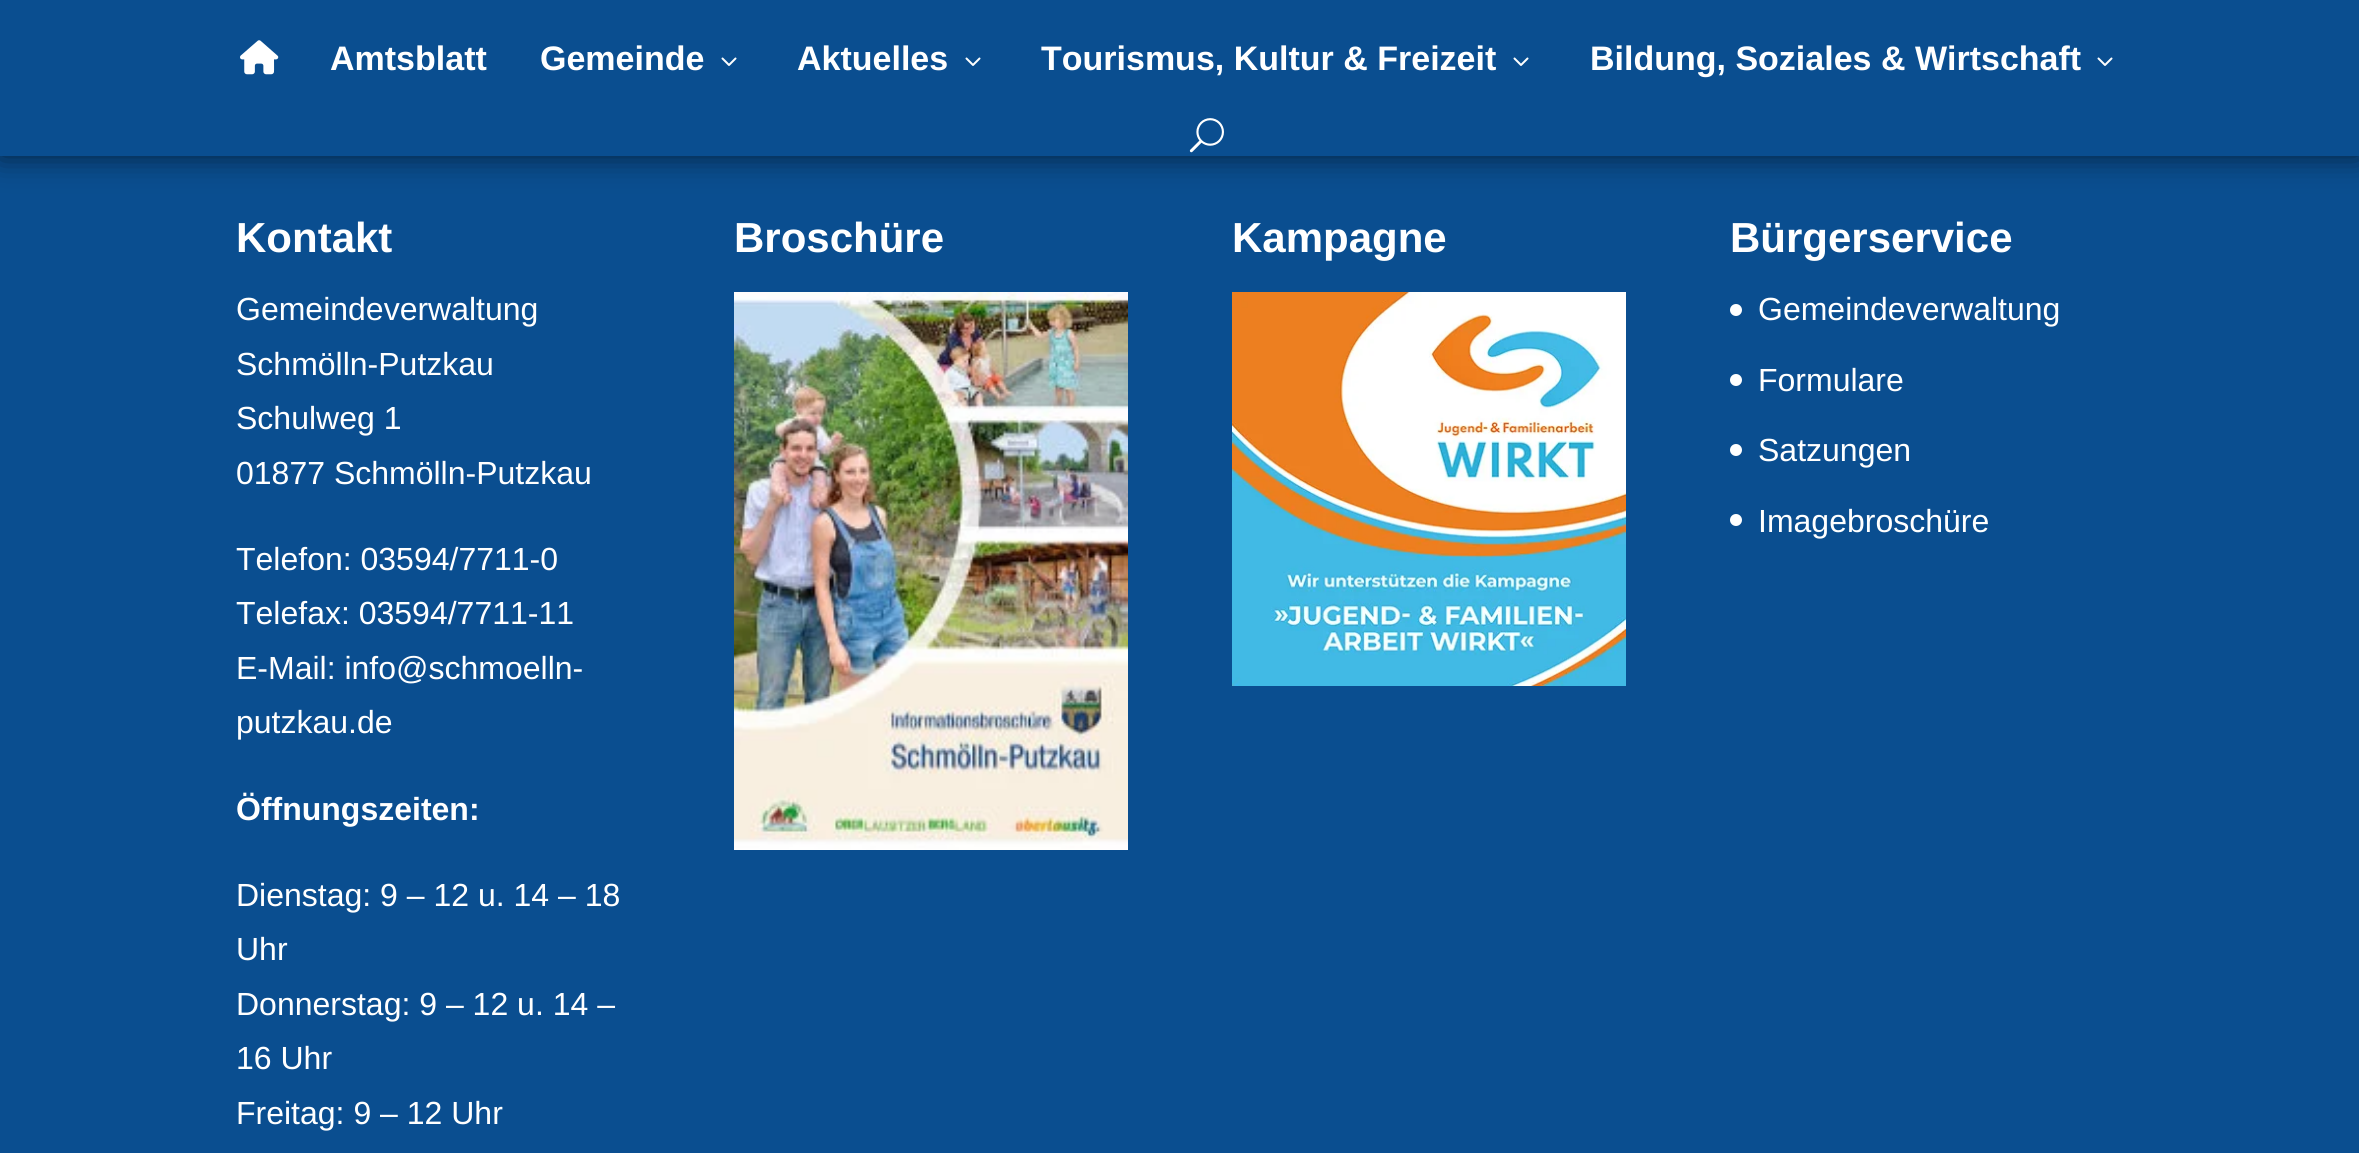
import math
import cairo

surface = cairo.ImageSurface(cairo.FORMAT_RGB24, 2359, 1153)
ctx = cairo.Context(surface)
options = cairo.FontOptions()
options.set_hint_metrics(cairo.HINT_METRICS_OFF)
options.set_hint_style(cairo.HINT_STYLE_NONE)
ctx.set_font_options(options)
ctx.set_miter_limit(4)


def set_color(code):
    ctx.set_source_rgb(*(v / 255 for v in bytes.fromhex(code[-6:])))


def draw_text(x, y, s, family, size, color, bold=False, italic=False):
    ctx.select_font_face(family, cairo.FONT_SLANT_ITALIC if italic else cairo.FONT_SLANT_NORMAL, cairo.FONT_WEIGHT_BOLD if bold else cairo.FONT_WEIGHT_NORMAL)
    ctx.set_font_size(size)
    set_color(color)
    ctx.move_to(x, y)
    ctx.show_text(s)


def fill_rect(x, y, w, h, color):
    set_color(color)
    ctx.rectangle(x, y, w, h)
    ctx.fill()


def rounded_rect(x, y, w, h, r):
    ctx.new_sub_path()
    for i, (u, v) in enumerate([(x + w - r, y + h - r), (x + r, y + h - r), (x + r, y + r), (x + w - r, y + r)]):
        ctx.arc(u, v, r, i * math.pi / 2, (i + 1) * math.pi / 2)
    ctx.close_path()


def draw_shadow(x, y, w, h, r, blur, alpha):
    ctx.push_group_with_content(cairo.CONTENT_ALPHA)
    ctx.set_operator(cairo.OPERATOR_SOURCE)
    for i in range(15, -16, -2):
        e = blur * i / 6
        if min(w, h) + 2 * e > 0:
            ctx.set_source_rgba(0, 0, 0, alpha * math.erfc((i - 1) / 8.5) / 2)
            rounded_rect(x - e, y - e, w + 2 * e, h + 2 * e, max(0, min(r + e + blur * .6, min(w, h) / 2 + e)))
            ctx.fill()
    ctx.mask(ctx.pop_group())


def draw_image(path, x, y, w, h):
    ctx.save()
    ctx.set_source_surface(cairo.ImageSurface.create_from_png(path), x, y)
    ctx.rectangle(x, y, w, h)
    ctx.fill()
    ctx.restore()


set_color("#0a4e90")
ctx.paint()
set_color("#000000")
draw_shadow(0, 0, 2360, 156, 0, 15, 0.6)
fill_rect(0, 0, 2359, 156, "#0a4e90")
draw_image("assets/img1.png", 240, 40, 39, 35)
draw_text(330, 70, "Amtsblatt", "Liberation Sans", 34, "#ffffff", bold=True)
draw_text(540, 70, "Gemeinde", "Liberation Sans", 34, "#ffffff", bold=True)
draw_image("assets/img2.png", 721, 57, 16, 9)
draw_text(797, 70, "Aktuelles", "Liberation Sans", 34, "#ffffff", bold=True)
draw_image("assets/img2.png", 965, 57, 16, 9)
draw_text(1041, 70, "Tourismus, Kultur & Freizeit", "Liberation Sans", 34, "#ffffff", bold=True)
draw_image("assets/img2.png", 1513, 57, 16, 9)
draw_text(1590, 70, "Bildung, Soziales & Wirtschaft", "Liberation Sans", 34, "#ffffff", bold=True)
draw_image("assets/img2.png", 2097, 57, 16, 9)
draw_image("assets/img3.png", 1189, 118, 35, 35)
draw_text(236, 252, "Kontakt", "Liberation Sans", 42, "#ffffff", bold=True)
draw_text(236, 320, "Gemeindeverwaltung", "Liberation Sans", 32, "#ffffff")
draw_text(236, 375, "Schmölln-Putzkau", "Liberation Sans", 32, "#ffffff")
draw_text(236, 429, "Schulweg 1", "Liberation Sans", 32, "#ffffff")
draw_text(236, 484, "01877 Schmölln-Putzkau", "Liberation Sans", 32, "#ffffff")
draw_text(236, 570, "Telefon: 03594/7711-0", "Liberation Sans", 32, "#ffffff")
draw_text(236, 624, "Telefax: 03594/7711-11", "Liberation Sans", 32, "#ffffff")
draw_text(236, 679, "E-Mail: info@schmoelln-", "Liberation Sans", 32, "#ffffff")
draw_text(236, 733, "putzkau.de", "Liberation Sans", 32, "#ffffff")
draw_text(236, 820, "Öffnungszeiten:", "Liberation Sans", 32, "#ffffff", bold=True)
draw_text(236, 906, "Dienstag: 9 – 12 u. 14 – 18", "Liberation Sans", 32, "#ffffff")
draw_text(236, 960, "Uhr", "Liberation Sans", 32, "#ffffff")
draw_text(236, 1015, "Donnerstag: 9 – 12 u. 14 –", "Liberation Sans", 32, "#ffffff")
draw_text(236, 1069, "16 Uhr", "Liberation Sans", 32, "#ffffff")
draw_text(236, 1124, "Freitag: 9 – 12 Uhr", "Liberation Sans", 32, "#ffffff")
draw_text(734, 252, "Broschüre", "Liberation Sans", 42, "#ffffff", bold=True)
draw_image("assets/img4.png", 734, 292, 394, 558)
draw_text(1232, 252, "Kampagne", "Liberation Sans", 42, "#ffffff", bold=True)
draw_image("assets/img5.png", 1232, 292, 394, 394)
draw_text(1730, 252, "Bürgerservice", "Liberation Sans", 42, "#ffffff", bold=True)
ctx.new_path()
ctx.arc(1736, 310, 6, 0, 2 * math.pi)
ctx.fill()
draw_text(1758, 320, "Gemeindeverwaltung", "Liberation Sans", 32, "#ffffff")
ctx.new_path()
ctx.arc(1736, 380, 6, 0, 2 * math.pi)
ctx.fill()
draw_text(1758, 391, "Formulare", "Liberation Sans", 32, "#ffffff")
ctx.new_path()
ctx.arc(1736, 450, 6, 0, 2 * math.pi)
ctx.fill()
draw_text(1758, 461, "Satzungen", "Liberation Sans", 32, "#ffffff")
ctx.new_path()
ctx.arc(1736, 520, 6, 0, 2 * math.pi)
ctx.fill()
draw_text(1758, 532, "Imagebroschüre", "Liberation Sans", 32, "#ffffff")
surface.write_to_png("output.png")
